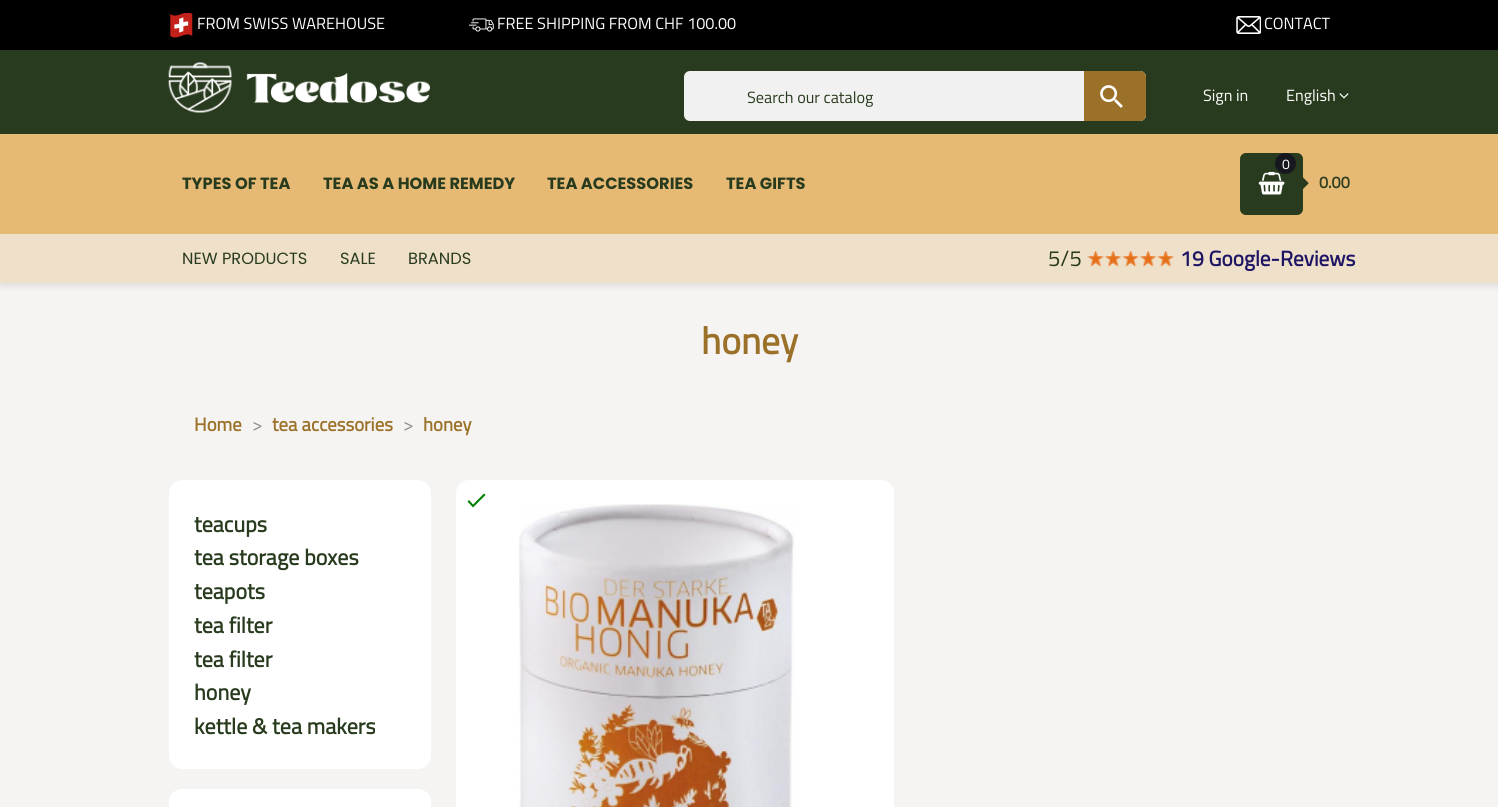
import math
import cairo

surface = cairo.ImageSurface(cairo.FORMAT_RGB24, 1498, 807)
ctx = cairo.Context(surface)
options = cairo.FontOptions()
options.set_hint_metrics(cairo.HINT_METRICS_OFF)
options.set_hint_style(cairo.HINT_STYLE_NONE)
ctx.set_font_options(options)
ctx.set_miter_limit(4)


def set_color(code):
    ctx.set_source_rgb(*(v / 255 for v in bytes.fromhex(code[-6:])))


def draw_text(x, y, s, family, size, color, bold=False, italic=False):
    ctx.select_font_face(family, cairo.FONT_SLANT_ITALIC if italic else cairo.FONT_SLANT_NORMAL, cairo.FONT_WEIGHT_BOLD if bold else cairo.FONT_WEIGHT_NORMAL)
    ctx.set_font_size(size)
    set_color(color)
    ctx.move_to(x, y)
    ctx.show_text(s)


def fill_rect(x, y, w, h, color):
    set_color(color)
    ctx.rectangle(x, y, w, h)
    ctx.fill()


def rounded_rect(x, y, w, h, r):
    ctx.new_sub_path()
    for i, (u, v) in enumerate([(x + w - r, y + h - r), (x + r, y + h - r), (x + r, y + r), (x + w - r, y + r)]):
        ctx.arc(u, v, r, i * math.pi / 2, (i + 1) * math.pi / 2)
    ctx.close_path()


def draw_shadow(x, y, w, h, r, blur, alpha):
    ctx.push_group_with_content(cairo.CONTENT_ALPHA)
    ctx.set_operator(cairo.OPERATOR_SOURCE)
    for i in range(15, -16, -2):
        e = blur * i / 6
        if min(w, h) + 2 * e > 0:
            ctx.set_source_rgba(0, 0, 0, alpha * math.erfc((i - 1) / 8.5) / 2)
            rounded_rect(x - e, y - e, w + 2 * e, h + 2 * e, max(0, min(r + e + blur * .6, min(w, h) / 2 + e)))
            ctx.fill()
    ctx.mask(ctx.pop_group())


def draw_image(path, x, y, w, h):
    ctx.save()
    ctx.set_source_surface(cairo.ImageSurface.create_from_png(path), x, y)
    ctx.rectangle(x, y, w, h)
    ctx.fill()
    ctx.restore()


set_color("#f5f4f2")
ctx.paint()
fill_rect(0, 0, 1498, 50, "#000000")
draw_image("assets/img1.png", 170, 13, 23, 25)
draw_text(197, 29, "FROM SWISS WAREHOUSE", "Titillium Web", 16.25, "#ffffff")
draw_image("assets/img2.png", 469, 18, 25, 14)
draw_text(497, 29, "FREE SHIPPING FROM CHF 100.00", "Titillium Web", 16.25, "#ffffff")
draw_image("assets/img3.png", 1236, 16, 25, 18)
draw_text(1264, 29, "CONTACT", "Titillium Web", 16.25, "#ffffff")
set_color("#000000")
draw_shadow(1, 135, 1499, 149, 0, 4.5, 0.15)
fill_rect(0, 50, 1498, 84, "#293b1e")
draw_image("assets/img4.png", 168, 62, 262, 51)
set_color("#f1f1f1")
rounded_rect(684, 71, 462, 50, 6)
ctx.fill()
draw_text(747, 103, "Search our catalog", "Titillium Web", 16.25, "#293b1e")
set_color("#9b7129")
ctx.new_path()
ctx.move_to(1084, 71)
ctx.line_to(1140, 71)
ctx.curve_to(1143.5, 71, 1146, 73.5, 1146, 77)
ctx.line_to(1146, 115)
ctx.curve_to(1146, 118.5, 1143.5, 121, 1140, 121)
ctx.line_to(1084, 121)
ctx.close_path()
ctx.fill()
draw_image("assets/img5.png", 1100, 85, 23, 23)
draw_text(1203, 101, "Sign in", "Titillium Web", 16.25, "#ffffff")
draw_text(1286, 101, "English", "Titillium Web", 16.25, "#ffffff")
draw_image("assets/img6.png", 1339, 93, 10, 6)
fill_rect(0, 134, 1498, 100, "#e6ba74")
draw_text(182, 189, "TYPES OF TEA", "Poppins", 16.25, "#293b1e", bold=True)
draw_text(323, 189, "TEA AS A HOME REMEDY", "Poppins", 16.25, "#293b1e", bold=True)
draw_text(547, 189, "TEA ACCESSORIES", "Poppins", 16.25, "#293b1e", bold=True)
draw_text(726, 189, "TEA GIFTS", "Poppins", 16.25, "#293b1e", bold=True)
rounded_rect(1240, 153, 63, 62, 6)
ctx.fill()
draw_image("assets/img7.png", 1258, 171, 27, 24)
draw_image("assets/img8.png", 1303, 177, 6, 12)
set_color("#171720")
ctx.arc(1285.5, 163.5, 10.5, 0, 2 * math.pi)
ctx.fill()
draw_text(1282, 169, "0", "Titillium Web", 14, "#ffffff")
draw_text(1319, 188, "0.00", "Titillium Web", 16.25, "#293b1e", bold=True)
fill_rect(0, 234, 1498, 49, "#efe0ca")
draw_text(182, 264, "NEW PRODUCTS", "Poppins", 16.25, "#293b1e")
draw_text(340, 264, "SALE", "Poppins", 16.25, "#293b1e")
draw_text(408, 264, "BRANDS", "Poppins", 16.25, "#293b1e")
draw_text(1048, 266, "5/5", "Titillium Web", 22, "#293b1e")
draw_image("assets/img9.png", 1087, 251, 17, 16)
draw_image("assets/img10.png", 1105, 251, 17, 16)
draw_image("assets/img9.png", 1122, 251, 17, 16)
draw_image("assets/img10.png", 1140, 251, 17, 16)
draw_image("assets/img9.png", 1157, 251, 17, 16)
draw_text(1180, 266, "19 Google-Reviews", "Titillium Web", 21.25, "#1e1464", bold=True)
draw_text(701, 354, "honey", "Titillium Web", 37.5, "#9b7129", bold=True)
draw_text(194, 431, "Home", "Titillium Web", 18.75, "#9b7129", bold=True)
draw_text(252, 431, ">", "Titillium Web", 18.75, "#8c8c8c")
draw_text(272, 431, "tea accessories", "Titillium Web", 18.75, "#9b7129", bold=True)
draw_text(403, 431, ">", "Titillium Web", 18.75, "#8c8c8c")
draw_text(423, 431, "honey", "Titillium Web", 18.75, "#9b7129", bold=True)
set_color("#ffffff")
rounded_rect(169, 480, 262, 289, 13)
ctx.fill()
draw_text(194, 532, "teacups", "Titillium Web", 22, "#293b1e", bold=True)
draw_text(194, 565, "tea storage boxes", "Titillium Web", 22, "#293b1e", bold=True)
draw_text(194, 599, "teapots", "Titillium Web", 22, "#293b1e", bold=True)
draw_text(194, 633, "tea filter", "Titillium Web", 22, "#293b1e", bold=True)
draw_text(194, 667, "tea filter", "Titillium Web", 22, "#293b1e", bold=True)
draw_text(194, 700, "honey", "Titillium Web", 22, "#293b1e", bold=True)
draw_text(194, 734, "kettle & tea makers", "Titillium Web", 22, "#293b1e", bold=True)
set_color("#ffffff")
rounded_rect(169, 789, 262, 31, 13)
ctx.fill()
rounded_rect(456, 480, 438, 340, 13)
ctx.fill()
set_color("#008000")
ctx.new_path()
ctx.move_to(473, 504.5)
ctx.line_to(484, 493.5)
ctx.line_to(485.5, 495)
ctx.line_to(473, 507.5)
ctx.line_to(467.5, 501.5)
ctx.line_to(469, 500)
ctx.close_path()
ctx.fill()
draw_image("assets/img11.png", 519, 504, 276, 303)
surface.write_to_png("output.png")
